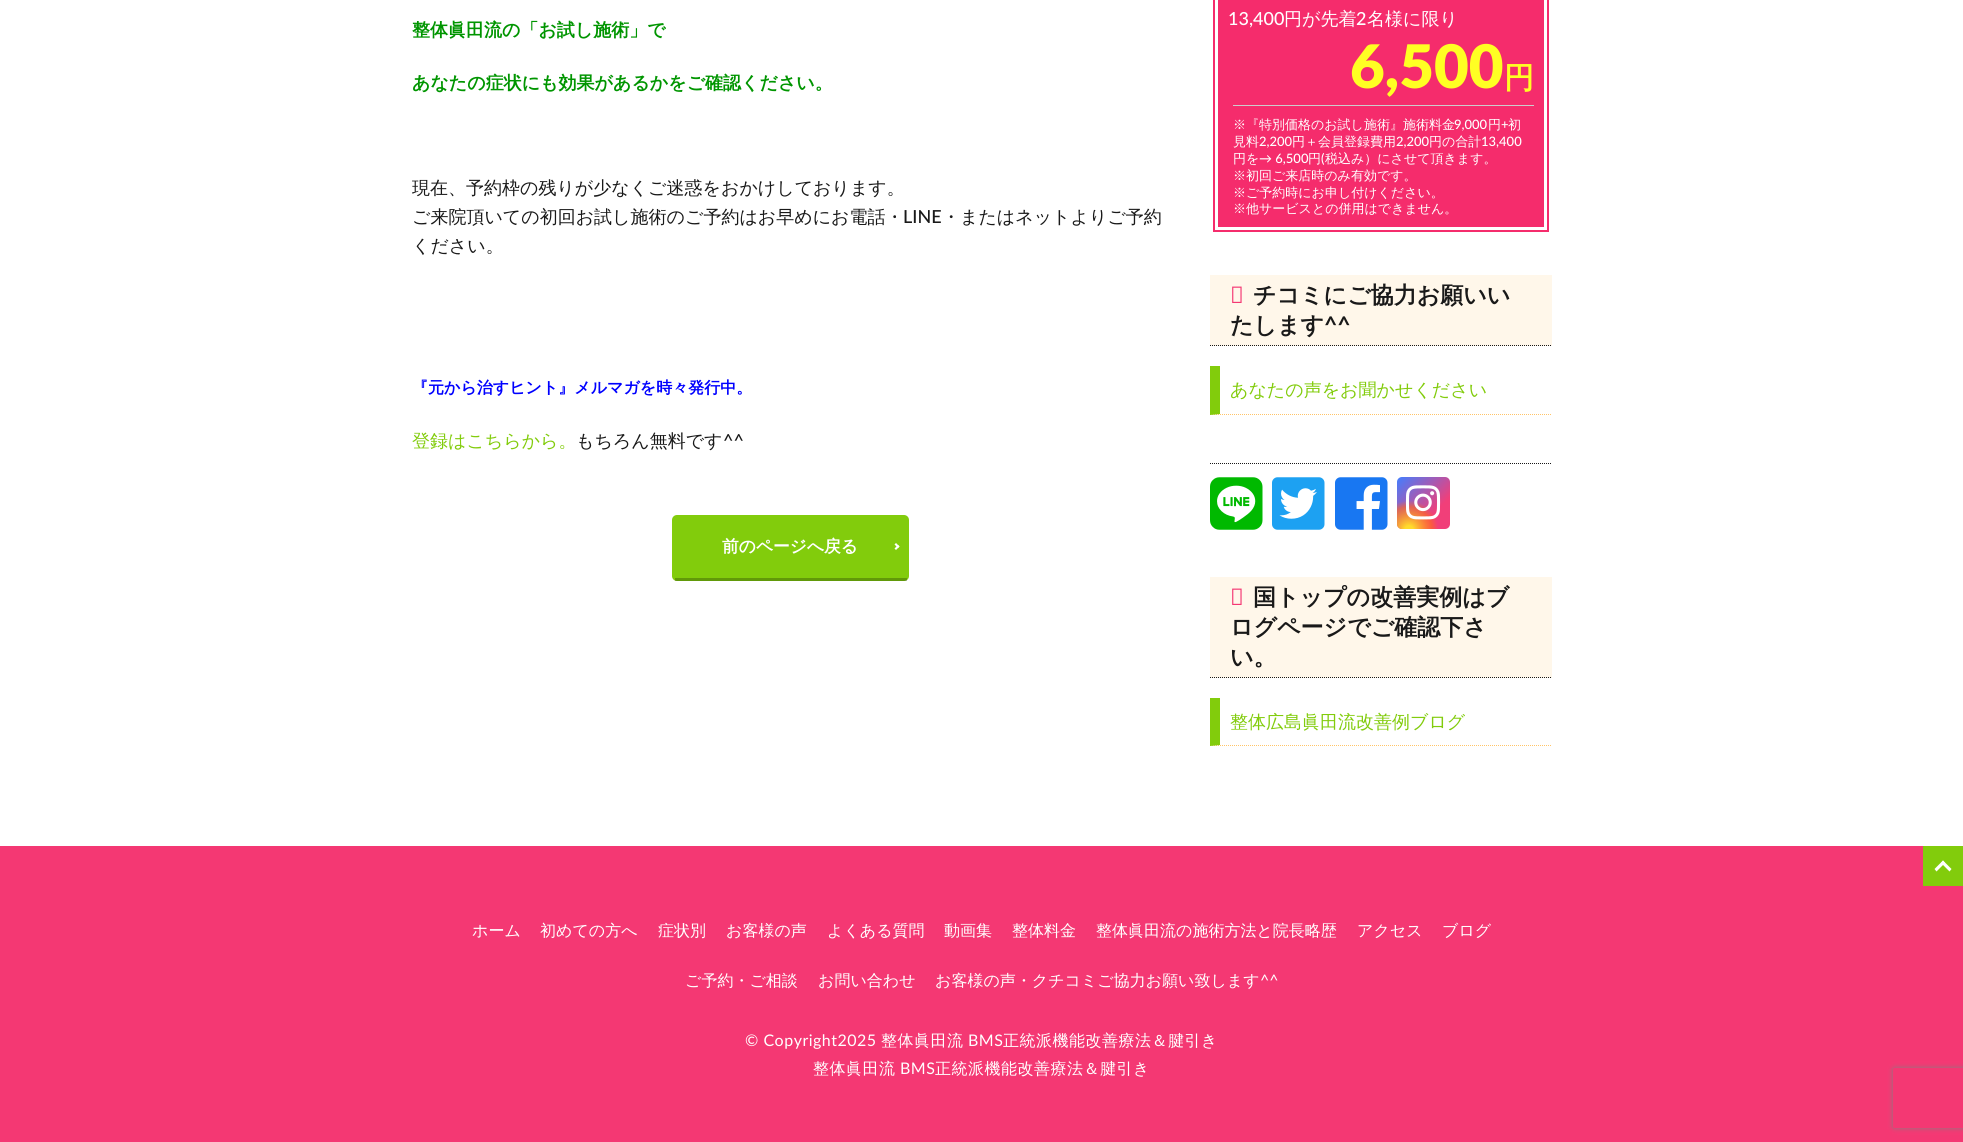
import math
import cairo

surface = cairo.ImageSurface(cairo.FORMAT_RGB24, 1963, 1142)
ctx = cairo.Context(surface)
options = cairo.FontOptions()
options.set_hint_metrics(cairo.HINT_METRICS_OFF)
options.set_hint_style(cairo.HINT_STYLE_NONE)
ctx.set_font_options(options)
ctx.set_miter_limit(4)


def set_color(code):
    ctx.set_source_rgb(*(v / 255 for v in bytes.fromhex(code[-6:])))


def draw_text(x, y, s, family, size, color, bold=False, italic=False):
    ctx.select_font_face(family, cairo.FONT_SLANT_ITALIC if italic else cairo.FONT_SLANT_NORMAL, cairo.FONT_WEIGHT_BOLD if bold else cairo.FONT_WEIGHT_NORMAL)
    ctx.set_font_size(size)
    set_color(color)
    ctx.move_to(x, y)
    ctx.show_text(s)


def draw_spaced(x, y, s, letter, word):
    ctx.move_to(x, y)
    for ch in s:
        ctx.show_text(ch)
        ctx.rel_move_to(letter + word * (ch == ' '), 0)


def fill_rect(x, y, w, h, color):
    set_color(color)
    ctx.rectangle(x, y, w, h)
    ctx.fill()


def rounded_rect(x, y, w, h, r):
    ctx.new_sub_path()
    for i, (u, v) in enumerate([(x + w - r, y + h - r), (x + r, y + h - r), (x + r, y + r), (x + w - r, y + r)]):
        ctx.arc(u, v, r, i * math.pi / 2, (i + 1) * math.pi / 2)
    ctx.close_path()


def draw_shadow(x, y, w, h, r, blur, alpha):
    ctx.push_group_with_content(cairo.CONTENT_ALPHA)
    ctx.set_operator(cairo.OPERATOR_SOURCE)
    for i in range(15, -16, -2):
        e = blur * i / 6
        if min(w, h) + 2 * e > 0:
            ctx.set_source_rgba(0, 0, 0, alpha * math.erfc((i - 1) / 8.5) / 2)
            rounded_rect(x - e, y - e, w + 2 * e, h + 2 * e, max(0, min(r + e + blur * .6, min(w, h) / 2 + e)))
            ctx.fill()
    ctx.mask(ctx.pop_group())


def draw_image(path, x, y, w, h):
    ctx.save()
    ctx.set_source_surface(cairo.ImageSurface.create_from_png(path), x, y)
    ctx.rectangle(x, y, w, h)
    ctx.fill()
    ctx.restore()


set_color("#ffffff")
ctx.paint()
draw_text(412, 36, "整体眞田流の「お試し施術」で", "WenQuanYi Zen Hei", 18, "#009500", bold=True)
draw_text(412, 89, "あなたの症状にも効果があるかをご確認ください。", "WenQuanYi Zen Hei", 18, "#009500", bold=True)
ctx.save()
ctx.rectangle(412, 0, 758, 312)
ctx.clip()
draw_text(412, 194, "現在、予約枠の残りが少なくご迷惑をおかけしております。", "WenQuanYi Zen Hei Medium", 18, "#191919")
ctx.restore()
draw_text(412, 223, "ご来院頂いての初回お試し施術のご予約はお早めにお電話・", "WenQuanYi Zen Hei Medium", 18, "#191919")
draw_text(903, 223, "LINE", "Lato Medium", 18, "#191919")
draw_text(942, 223, "・またはネットよりご予約", "WenQuanYi Zen Hei Medium", 18, "#191919")
draw_text(412, 252, "ください。", "WenQuanYi Zen Hei Medium", 18, "#191919")
draw_text(412, 393, "『元から治すヒント』メルマガを時々発行中。", "WenQuanYi Zen Hei", 16, "#0000ff", bold=True)
draw_text(412, 447, "登録はこちらから。", "WenQuanYi Zen Hei Medium", 18, "#82cc0c")
draw_text(576, 447, "もちろん無料です", "WenQuanYi Zen Hei Medium", 18, "#191919")
draw_text(723, 447, "^^", "Lato Medium", 18, "#191919")
set_color("#82cc0c")
rounded_rect(672, 515, 237, 66, 5)
ctx.fill()
ctx.set_source_rgba(0, 0, 0, 0.25)
ctx.rectangle(675, 578, 232, 3)
ctx.fill()
draw_text(722, 552, "前のページへ戻る", "WenQuanYi Zen Hei", 16.75, "#ffffff", bold=True)
ctx.new_path()
ctx.move_to(896, 543)
ctx.line_to(899.5, 546.5)
ctx.line_to(898, 548)
ctx.line_to(894.5, 544.5)
ctx.close_path()
ctx.fill()
ctx.new_path()
ctx.move_to(898, 545)
ctx.line_to(899.5, 546.5)
ctx.line_to(896, 550)
ctx.line_to(894.5, 548.5)
ctx.close_path()
ctx.fill()
fill_rect(1213, 0, 336, 232, "#f52c6c")
ctx.rectangle(1216.5, -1.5, 329, 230)
set_color("#ffffff")
ctx.set_line_width(3)
ctx.stroke()
draw_text(1228, 25, "13,400", "Lato Medium", 18, "#ffffff")
draw_text(1284, 25, "円が先着", "WenQuanYi Zen Hei Medium", 18, "#ffffff")
draw_text(1356, 25, "2", "Lato Medium", 18, "#ffffff")
draw_text(1367, 25, "名様に限り", "WenQuanYi Zen Hei Medium", 18, "#ffffff")
draw_text(1350, 88, "6,500", "Lato ExtraBold", 60, "#ffff23")
draw_text(1504, 88, "円", "WenQuanYi Zen Hei", 30, "#ffff23", bold=True)
fill_rect(1233, 105, 301, 1, "#cccccc")
draw_text(1233, 129, "※『特別価格のお試し施術』施術料金", "WenQuanYi Zen Hei Medium", 13, "#ffffff")
draw_text(1454, 129, "9,000", "Lato Medium", 13, "#ffffff")
draw_text(1488, 129, "円", "WenQuanYi Zen Hei Medium", 13, "#ffffff")
draw_text(1501, 129, "+", "Lato Medium", 13, "#ffffff")
draw_text(1508, 129, "初", "WenQuanYi Zen Hei Medium", 13, "#ffffff")
draw_text(1233, 146, "見料", "WenQuanYi Zen Hei Medium", 13, "#ffffff")
draw_text(1259, 146, "2,200", "Lato Medium", 13, "#ffffff")
draw_text(1292, 146, "円＋会員登録費用", "WenQuanYi Zen Hei Medium", 13, "#ffffff")
draw_text(1396, 146, "2,200", "Lato Medium", 13, "#ffffff")
draw_text(1429, 146, "円の合計", "WenQuanYi Zen Hei Medium", 13, "#ffffff")
draw_text(1481, 146, "13,400", "Lato Medium", 13, "#ffffff")
draw_text(1233, 163, "円を", "WenQuanYi Zen Hei Medium", 13, "#ffffff")
draw_text(1259, 163, "→ 6,500", "Lato Medium", 13, "#ffffff")
draw_text(1308, 163, "円", "WenQuanYi Zen Hei Medium", 13, "#ffffff")
draw_text(1321, 163, "(", "Lato Medium", 13, "#ffffff")
draw_text(1325, 163, "税込み）にさせて頂きます。", "WenQuanYi Zen Hei Medium", 13, "#ffffff")
draw_text(1233, 180, "※初回ご来店時のみ有効です。", "WenQuanYi Zen Hei Medium", 13, "#ffffff")
draw_text(1233, 197, "※ご予約時にお申し付けください。", "WenQuanYi Zen Hei Medium", 13, "#ffffff")
draw_text(1233, 213, "※他サービスとの併用はできません。", "WenQuanYi Zen Hei Medium", 13, "#ffffff")
fill_rect(1210, 275, 342, 71, "#fff7ea")
ctx.new_path()
ctx.move_to(1210, 345.5)
ctx.line_to(1552, 345.5)
set_color("#191919")
ctx.set_line_width(1)
ctx.set_dash([1, 1])
ctx.stroke()
draw_text(1230, 303, "ク", "Noto Sans Thin", 23, "#f43873")
draw_text(1253, 303, "チコミにご協力お願いい", "WenQuanYi Zen Hei", 23, "#191919", bold=True)
draw_text(1230, 333, "たします", "WenQuanYi Zen Hei", 23, "#191919", bold=True)
draw_text(1324, 333, "^^", "Lato", 23, "#191919", bold=True)
ctx.new_path()
ctx.move_to(1210, 414.5)
ctx.line_to(1552, 414.5)
set_color("#ffc468")
ctx.stroke()
set_color("#82cc0c")
ctx.new_path()
ctx.move_to(1210, 415)
ctx.line_to(1210, 366)
ctx.line_to(1220, 366)
ctx.line_to(1220, 414)
ctx.close_path()
ctx.fill()
draw_text(1230, 396, "あなたの声をお聞かせください", "WenQuanYi Zen Hei Medium", 18, "#82cc0c")
ctx.new_path()
ctx.move_to(1210, 463.5)
ctx.line_to(1552, 463.5)
set_color("#191919")
ctx.stroke()
draw_image("assets/img1.png", 1210, 477, 53, 53)
draw_image("assets/img2.png", 1272, 477, 53, 53)
draw_image("assets/img3.png", 1335, 477, 53, 53)
gradient = cairo.LinearGradient(1397, 477, 1450, 529)
gradient.add_color_stop_rgba(0, 0.259, 0.494, 1, 1)
gradient.add_color_stop_rgba(0.7, 0.945, 0.247, 0.475, 1)
ctx.set_source(gradient)
rounded_rect(1397, 477, 53, 52, 5)
ctx.fill()
gradient = cairo.RadialGradient(1409, 530, 0, 1409, 530, 42)
gradient.add_color_stop_rgba(0.1, 1, 0.859, 0.173, 1)
gradient.add_color_stop_rgba(0.55, 1, 0.412, 0.133, 0.65)
gradient.add_color_stop_rgba(0.7, 1, 0.412, 0.133, 0)
ctx.set_source(gradient)
ctx.new_path()
ctx.move_to(1397, 500)
ctx.line_to(1439, 500)
ctx.line_to(1439, 529)
ctx.line_to(1402, 529)
ctx.curve_to(1399, 529, 1397, 527, 1397, 524)
ctx.close_path()
ctx.fill()
draw_image("assets/img4.png", 1405, 485, 36, 35)
fill_rect(1210, 577, 342, 101, "#fff7ea")
ctx.new_path()
ctx.move_to(1210, 677.5)
ctx.line_to(1552, 677.5)
set_color("#191919")
ctx.stroke()
draw_text(1230, 605, "全", "Noto Sans Thin", 23, "#f43873")
draw_text(1253, 605, "国トップの改善実例はブ", "WenQuanYi Zen Hei", 23, "#191919", bold=True)
draw_text(1230, 635, "ログページでご確認下さ", "WenQuanYi Zen Hei", 23, "#191919", bold=True)
draw_text(1230, 665, "い。", "WenQuanYi Zen Hei", 23, "#191919", bold=True)
ctx.new_path()
ctx.move_to(1210, 745.5)
ctx.line_to(1552, 745.5)
set_color("#ffc468")
ctx.stroke()
set_color("#82cc0c")
ctx.new_path()
ctx.move_to(1210, 746)
ctx.line_to(1210, 698)
ctx.line_to(1220, 698)
ctx.line_to(1220, 745)
ctx.close_path()
ctx.fill()
draw_text(1230, 728, "整体広島眞田流改善例ブログ", "WenQuanYi Zen Hei Medium", 18, "#82cc0c")
fill_rect(0, 846, 1963, 296, "#f43873")
fill_rect(1923, 846, 40, 40, "#82cc0c")
set_color("#ffffff")
ctx.new_path()
ctx.move_to(1934.5, 869)
ctx.line_to(1943, 860.5)
ctx.line_to(1945, 863)
ctx.line_to(1936.5, 871.5)
ctx.close_path()
ctx.fill()
ctx.new_path()
ctx.move_to(1941, 863)
ctx.line_to(1943, 860.5)
ctx.line_to(1951.5, 869)
ctx.line_to(1949.5, 871.5)
ctx.close_path()
ctx.fill()
draw_text(472, 936, "ホーム", "WenQuanYi Zen Hei Medium", 16, "#ffffff")
draw_text(540, 936, "初めての方へ", "WenQuanYi Zen Hei Medium", 16, "#ffffff")
draw_text(658, 936, "症状別", "WenQuanYi Zen Hei Medium", 16, "#ffffff")
draw_text(726, 936, "お客様の声", "WenQuanYi Zen Hei Medium", 16, "#ffffff")
draw_text(827, 936, "よくある質問", "WenQuanYi Zen Hei Medium", 16, "#ffffff")
draw_text(944, 936, "動画集", "WenQuanYi Zen Hei Medium", 16, "#ffffff")
draw_text(1012, 936, "整体料金", "WenQuanYi Zen Hei Medium", 16, "#ffffff")
draw_text(1096, 936, "整体眞田流の施術方法と院長略歴", "WenQuanYi Zen Hei Medium", 16, "#ffffff")
draw_text(1357, 936, "アクセス", "WenQuanYi Zen Hei Medium", 16, "#ffffff")
draw_text(1442, 936, "ブログ", "WenQuanYi Zen Hei Medium", 16, "#ffffff")
draw_text(685, 986, "ご予約・ご相談", "WenQuanYi Zen Hei Medium", 16, "#ffffff")
draw_text(818, 986, "お問い合わせ", "WenQuanYi Zen Hei Medium", 16, "#ffffff")
draw_text(935, 986, "お客様の声・クチコミご協力お願い致します", "WenQuanYi Zen Hei Medium", 16, "#ffffff")
draw_text(1260, 986, "^^", "Lato", 16, "#ffffff")
draw_spaced(745, 1046, "© Copyright2025", 0.5, 0)
ctx.select_font_face("WenQuanYi Zen Hei Medium")
draw_spaced(881, 1046, "整体眞田流", 0.5, 0)
ctx.select_font_face("Lato")
draw_spaced(968, 1046, "BMS", 0.5, 0)
ctx.select_font_face("WenQuanYi Zen Hei Medium")
draw_spaced(1003, 1046, "正統派機能改善療法＆腱引き", 0.5, 0)
draw_spaced(813, 1074, "整体眞田流", 0.5, 0)
ctx.select_font_face("Lato")
draw_spaced(900, 1074, "BMS", 0.5, 0)
ctx.select_font_face("WenQuanYi Zen Hei Medium")
draw_spaced(935, 1074, "正統派機能改善療法＆腱引き", 0.5, 0)
ctx.save()
ctx.set_fill_rule(cairo.FILL_RULE_EVEN_ODD)
ctx.new_path()
ctx.move_to(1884, 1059)
ctx.line_to(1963, 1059)
ctx.line_to(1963, 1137)
ctx.line_to(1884, 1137)
ctx.close_path()
ctx.move_to(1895, 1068)
ctx.line_to(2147, 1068)
ctx.curve_to(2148, 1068, 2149, 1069, 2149, 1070)
ctx.line_to(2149, 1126)
ctx.curve_to(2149, 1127, 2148, 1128, 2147, 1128)
ctx.line_to(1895, 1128)
ctx.curve_to(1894, 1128, 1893, 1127, 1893, 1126)
ctx.line_to(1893, 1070)
ctx.curve_to(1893, 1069, 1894, 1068, 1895, 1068)
ctx.close_path()
ctx.clip()
set_color("#808080")
draw_shadow(1893, 1068, 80, 60, 2, 2.5, 1)
ctx.restore()
surface.write_to_png("output.png")
